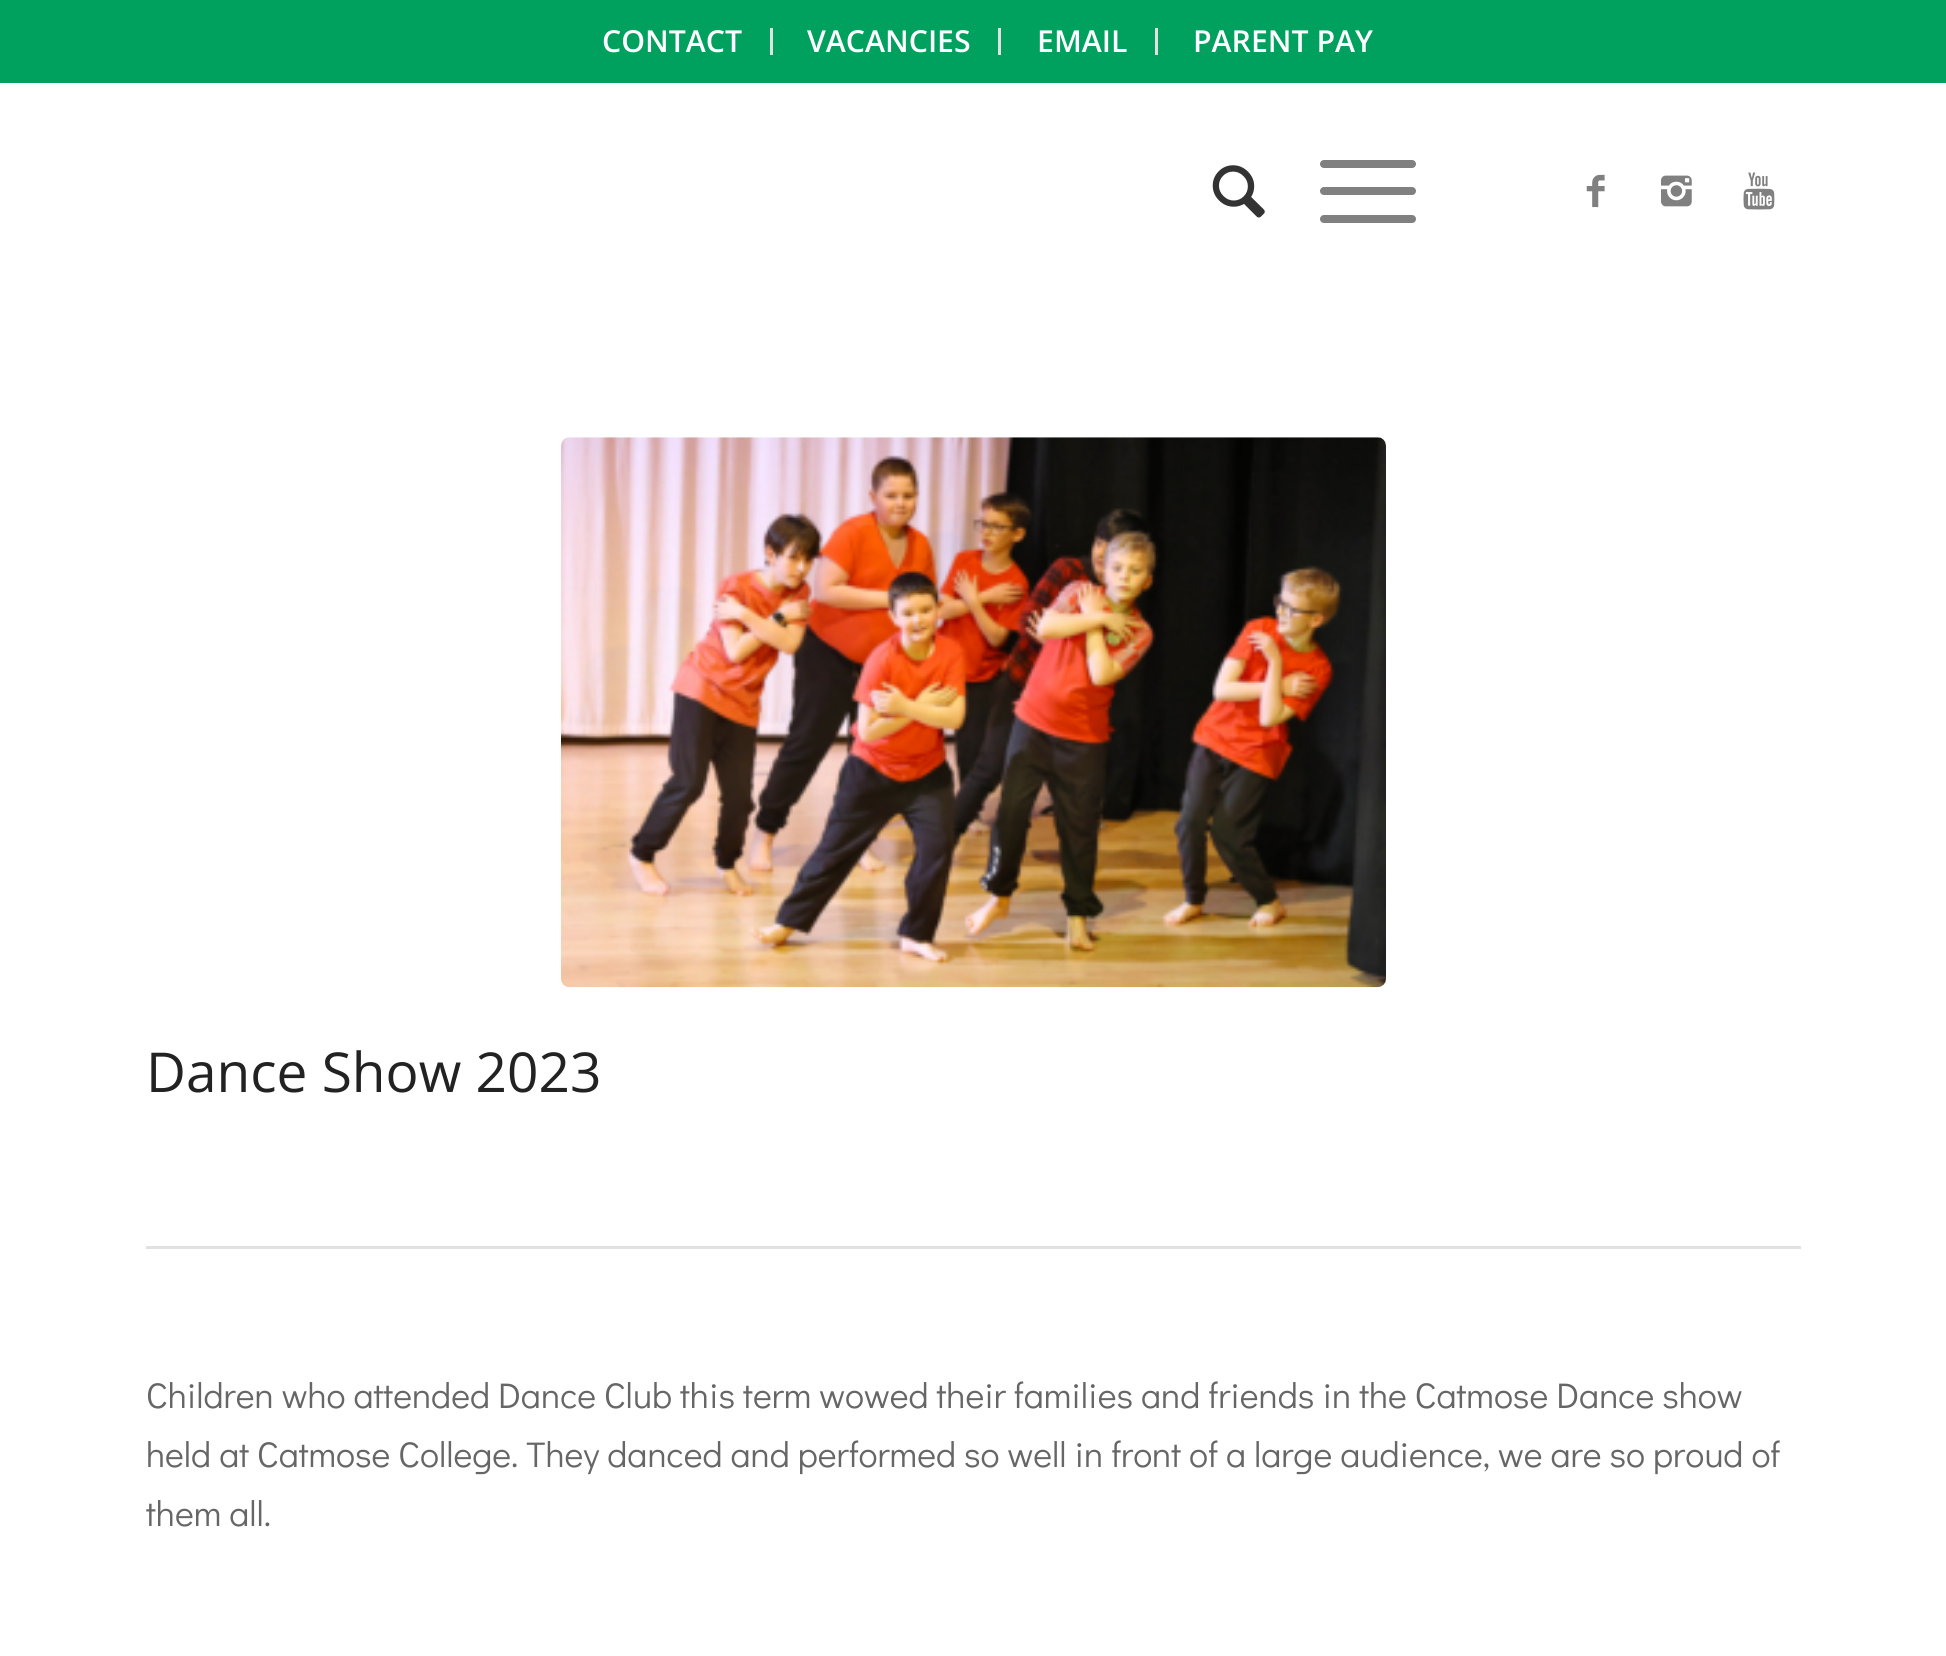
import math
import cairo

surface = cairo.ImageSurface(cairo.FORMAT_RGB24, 1946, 1656)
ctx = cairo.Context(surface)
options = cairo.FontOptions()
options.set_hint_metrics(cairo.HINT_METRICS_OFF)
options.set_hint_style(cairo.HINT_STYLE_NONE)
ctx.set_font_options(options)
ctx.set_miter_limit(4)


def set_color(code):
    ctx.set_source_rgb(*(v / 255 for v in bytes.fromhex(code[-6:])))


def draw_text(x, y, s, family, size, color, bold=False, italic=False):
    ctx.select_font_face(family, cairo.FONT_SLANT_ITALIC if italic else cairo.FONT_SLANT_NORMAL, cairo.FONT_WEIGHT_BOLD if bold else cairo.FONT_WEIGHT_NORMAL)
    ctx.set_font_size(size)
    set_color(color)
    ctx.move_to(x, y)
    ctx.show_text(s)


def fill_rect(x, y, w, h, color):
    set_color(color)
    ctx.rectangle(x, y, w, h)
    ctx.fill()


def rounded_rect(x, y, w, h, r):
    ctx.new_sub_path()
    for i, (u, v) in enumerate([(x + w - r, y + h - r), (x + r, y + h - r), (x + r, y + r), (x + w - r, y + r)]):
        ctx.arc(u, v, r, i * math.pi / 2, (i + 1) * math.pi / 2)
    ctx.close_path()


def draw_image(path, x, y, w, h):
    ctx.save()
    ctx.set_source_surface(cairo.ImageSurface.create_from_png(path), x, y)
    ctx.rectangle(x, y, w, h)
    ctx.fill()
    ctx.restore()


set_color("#ffffff")
ctx.paint()
fill_rect(0, 0, 1946, 83, "#00a15e")
fill_rect(770, 28, 3, 27, "#e1e1e1")
draw_text(602, 52, "CONTACT", "Open Sans SemiBold", 30.25, "#ffffff")
fill_rect(998, 28, 3, 27, "#e1e1e1")
draw_text(807, 52, "VACANCIES", "Open Sans SemiBold", 30.25, "#ffffff")
fill_rect(1155, 28, 3, 27, "#e1e1e1")
draw_text(1037, 52, "EMAIL", "Open Sans SemiBold", 30.25, "#ffffff")
draw_text(1193, 52, "PARENT PAY", "Open Sans SemiBold", 30.25, "#ffffff")
draw_image("assets/img1.png", 1212, 165, 53, 53)
set_color("#808080")
rounded_rect(1320, 187, 96, 8, 4)
ctx.fill()
rounded_rect(1320, 160, 96, 8, 4)
ctx.fill()
rounded_rect(1320, 215, 96, 8, 4)
ctx.fill()
draw_image("assets/img2.png", 1586, 174, 19, 34)
draw_image("assets/img3.png", 1661, 175, 31, 32)
draw_image("assets/img4.png", 1743, 172, 32, 38)
draw_image("assets/img5.png", 561, 437, 825, 551)
draw_text(146, 1092, "Dance Show 2023", "Open Sans", 55, "#222222")
fill_rect(146, 1246, 1655, 3, "#e1e1e1")
draw_text(146, 1408, "Children who attended Dance Club this term wowed their families and friends in the Catmose Dance show", "Didact Gothic", 35.75, "#666666")
draw_text(146, 1467, "held at Catmose College. They danced and performed so well in front of a large audience, we are so proud of", "Didact Gothic", 35.75, "#666666")
draw_text(146, 1526, "them all.", "Didact Gothic", 35.75, "#666666")
surface.write_to_png("output.png")
